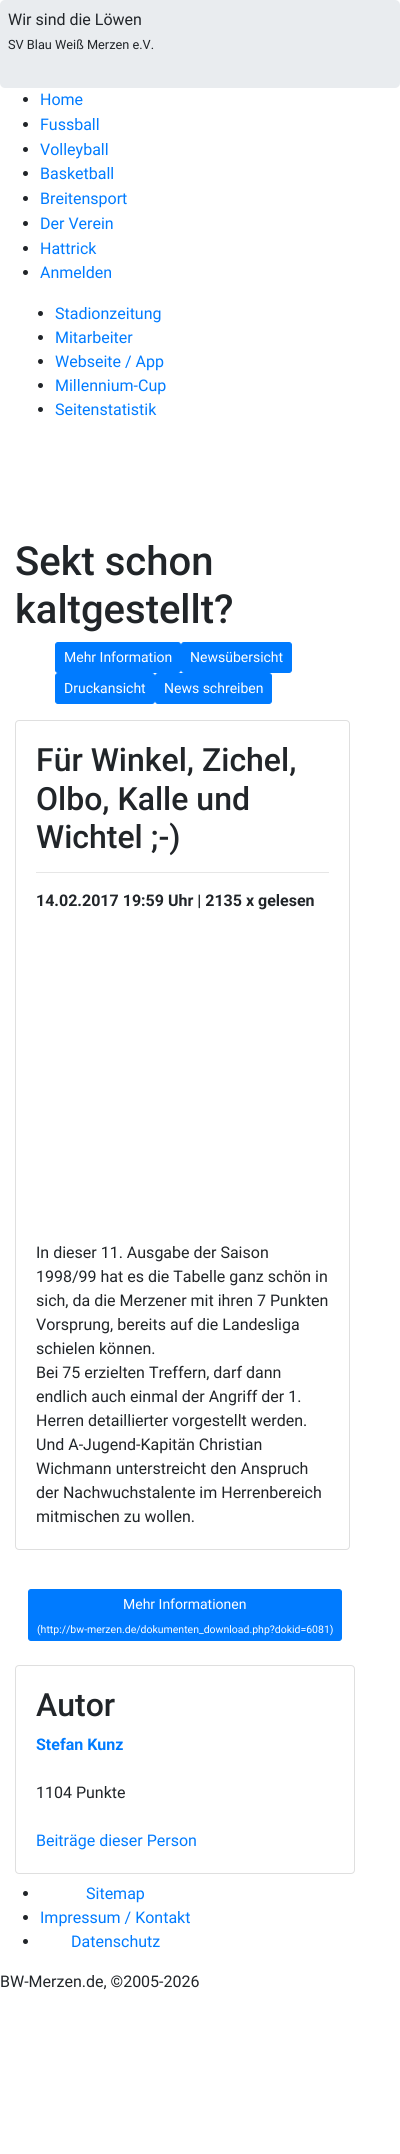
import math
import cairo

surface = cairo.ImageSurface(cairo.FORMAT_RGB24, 400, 2154)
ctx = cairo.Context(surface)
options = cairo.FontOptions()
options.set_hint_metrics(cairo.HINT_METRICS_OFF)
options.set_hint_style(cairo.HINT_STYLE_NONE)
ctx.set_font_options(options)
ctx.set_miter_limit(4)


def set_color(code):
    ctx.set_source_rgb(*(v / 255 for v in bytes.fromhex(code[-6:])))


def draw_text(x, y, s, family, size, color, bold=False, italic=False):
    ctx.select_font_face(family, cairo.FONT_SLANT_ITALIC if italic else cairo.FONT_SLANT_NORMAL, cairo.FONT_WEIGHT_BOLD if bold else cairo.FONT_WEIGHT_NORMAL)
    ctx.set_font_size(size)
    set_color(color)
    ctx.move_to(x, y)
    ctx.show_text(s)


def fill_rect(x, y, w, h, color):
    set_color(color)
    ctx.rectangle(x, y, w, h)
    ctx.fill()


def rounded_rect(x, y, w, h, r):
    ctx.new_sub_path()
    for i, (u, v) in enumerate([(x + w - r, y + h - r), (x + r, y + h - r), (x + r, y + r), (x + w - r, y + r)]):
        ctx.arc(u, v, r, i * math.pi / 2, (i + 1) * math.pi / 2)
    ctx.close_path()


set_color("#ffffff")
ctx.paint()
set_color("#e9ecef")
rounded_rect(0, 0, 400, 88, 5)
ctx.fill()
draw_text(8, 25, "Wir sind die Löwen", "Roboto", 16, "#212529")
draw_text(8, 49, "SV Blau Weiß Merzen e.V.", "Roboto", 12.75, "#212529")
ctx.new_path()
ctx.arc(25.5, 99.5, 2.5, 0, 2 * math.pi)
ctx.fill()
draw_text(40, 105, "Home", "Roboto", 16, "#007bff")
set_color("#212529")
ctx.new_path()
ctx.arc(25.5, 124.5, 2.5, 0, 2 * math.pi)
ctx.fill()
draw_text(40, 130, "Fussball", "Roboto", 16, "#007bff")
set_color("#212529")
ctx.new_path()
ctx.arc(25.5, 149.5, 2.5, 0, 2 * math.pi)
ctx.fill()
draw_text(40, 155, "Volleyball", "Roboto", 16, "#007bff")
set_color("#212529")
ctx.new_path()
ctx.arc(25.5, 173.5, 2.5, 0, 2 * math.pi)
ctx.fill()
draw_text(40, 179, "Basketball", "Roboto", 16, "#007bff")
set_color("#212529")
ctx.new_path()
ctx.arc(25.5, 198.5, 2.5, 0, 2 * math.pi)
ctx.fill()
draw_text(40, 204, "Breitensport", "Roboto", 16, "#007bff")
set_color("#212529")
ctx.new_path()
ctx.arc(25.5, 223.5, 2.5, 0, 2 * math.pi)
ctx.fill()
draw_text(40, 229, "Der Verein", "Roboto", 16, "#007bff")
set_color("#212529")
ctx.new_path()
ctx.arc(25.5, 248.5, 2.5, 0, 2 * math.pi)
ctx.fill()
draw_text(40, 254, "Hattrick", "Roboto", 16, "#007bff")
set_color("#212529")
ctx.new_path()
ctx.arc(25.5, 272.5, 2.5, 0, 2 * math.pi)
ctx.fill()
draw_text(40, 278, "Anmelden", "Roboto", 16, "#007bff")
set_color("#212529")
ctx.new_path()
ctx.arc(40.5, 313.5, 2.5, 0, 2 * math.pi)
ctx.fill()
draw_text(55, 319, "Stadionzeitung", "Roboto", 16, "#007bff")
set_color("#212529")
ctx.new_path()
ctx.arc(40.5, 337.5, 2.5, 0, 2 * math.pi)
ctx.fill()
draw_text(55, 343, "Mitarbeiter", "Roboto", 16, "#007bff")
set_color("#212529")
ctx.new_path()
ctx.arc(40.5, 361.5, 2.5, 0, 2 * math.pi)
ctx.fill()
draw_text(55, 367, "Webseite / App", "Roboto", 16, "#007bff")
set_color("#212529")
ctx.new_path()
ctx.arc(40.5, 385.5, 2.5, 0, 2 * math.pi)
ctx.fill()
draw_text(55, 391, "Millennium-Cup", "Roboto", 16, "#007bff")
set_color("#212529")
ctx.new_path()
ctx.arc(40.5, 409.5, 2.5, 0, 2 * math.pi)
ctx.fill()
draw_text(55, 415, "Seitenstatistik", "Roboto", 16, "#007bff")
draw_text(15, 575, "Sekt schon", "Roboto Medium", 40, "#212529")
draw_text(15, 623, "kaltgestellt?", "Roboto Medium", 40, "#212529")
set_color("#007bff")
rounded_rect(55.5, 642.5, 125, 30, 2.5)
ctx.fill_preserve()
ctx.set_line_width(1)
ctx.stroke()
draw_text(64, 662, "Mehr Information", "Roboto", 14, "#ffffff")
set_color("#007bff")
rounded_rect(181.5, 642.5, 110, 30, 2.5)
ctx.fill_preserve()
ctx.stroke()
draw_text(190, 662, "Newsübersicht", "Roboto", 14, "#ffffff")
set_color("#007bff")
rounded_rect(55.5, 673.5, 99, 30, 2.5)
ctx.fill_preserve()
ctx.stroke()
draw_text(64, 693, "Druckansicht", "Roboto", 14, "#ffffff")
set_color("#007bff")
rounded_rect(155.5, 673.5, 116, 30, 2.5)
ctx.fill_preserve()
ctx.stroke()
draw_text(164, 693, "News schreiben", "Roboto", 14, "#ffffff")
rounded_rect(15.5, 720.5, 334, 829, 3.5)
set_color("#dfdfdf")
ctx.stroke()
draw_text(36, 771, "Für Winkel, Zichel,", "Roboto Medium", 32, "#212529")
draw_text(36, 810, "Olbo, Kalle und", "Roboto Medium", 32, "#212529")
draw_text(36, 848, "Wichtel ;-)", "Roboto Medium", 32, "#212529")
fill_rect(36, 872, 293, 1, "#e6e6e6")
draw_text(36, 906, "14.02.2017 19:59 Uhr | 2135 x gelesen", "Roboto", 16, "#212529", bold=True)
draw_text(36, 1258, "In dieser 11. Ausgabe der Saison", "Roboto", 16, "#212529")
draw_text(36, 1282, "1998/99 hat es die Tabelle ganz schön in", "Roboto", 16, "#212529")
draw_text(36, 1306, "sich, da die Merzener mit ihren 7 Punkten", "Roboto", 16, "#212529")
draw_text(36, 1330, "Vorsprung, bereits auf die Landesliga", "Roboto", 16, "#212529")
draw_text(36, 1354, "schielen können.", "Roboto", 16, "#212529")
draw_text(36, 1378, "Bei 75 erzielten Treffern, darf dann", "Roboto", 16, "#212529")
draw_text(36, 1402, "endlich auch einmal der Angriff der 1.", "Roboto", 16, "#212529")
draw_text(36, 1426, "Herren detaillierter vorgestellt werden.", "Roboto", 16, "#212529")
draw_text(36, 1450, "Und A-Jugend-Kapitän Christian", "Roboto", 16, "#212529")
draw_text(36, 1474, "Wichmann unterstreicht den Anspruch", "Roboto", 16, "#212529")
draw_text(36, 1498, "der Nachwuchstalente im Herrenbereich", "Roboto", 16, "#212529")
draw_text(36, 1522, "mitmischen zu wollen.", "Roboto", 16, "#212529")
set_color("#007bff")
rounded_rect(28.5, 1589.5, 313, 51, 2.5)
ctx.fill_preserve()
ctx.stroke()
draw_text(123, 1609, "Mehr Informationen", "Roboto", 14, "#ffffff")
draw_text(37, 1633, "(http://bw-merzen.de/dokumenten_download.php?dokid=6081)", "Roboto", 10.5, "#ffffff")
rounded_rect(15.5, 1665.5, 339, 208, 3.5)
set_color("#dfdfdf")
ctx.stroke()
draw_text(36, 1716, "Autor", "Roboto Medium", 32, "#212529")
draw_text(36, 1750, "Stefan Kunz", "Roboto", 16, "#007bff", bold=True)
draw_text(36, 1798, "1104 Punkte", "Roboto", 16, "#212529")
draw_text(36, 1846, "Beiträge dieser Person", "Roboto", 16, "#007bff")
set_color("#212529")
ctx.new_path()
ctx.arc(25.5, 1893.5, 2.5, 0, 2 * math.pi)
ctx.fill()
draw_text(86, 1899, "Sitemap", "Roboto", 16, "#007bff")
set_color("#212529")
ctx.new_path()
ctx.arc(25.5, 1917.5, 2.5, 0, 2 * math.pi)
ctx.fill()
draw_text(40, 1923, "Impressum / Kontakt", "Roboto", 16, "#007bff")
set_color("#212529")
ctx.new_path()
ctx.arc(25.5, 1941.5, 2.5, 0, 2 * math.pi)
ctx.fill()
draw_text(71, 1947, "Datenschutz", "Roboto", 16, "#007bff")
draw_text(0, 1987, "BW-Merzen.de, ©2005-2026", "Roboto", 16, "#212529")
surface.write_to_png("output.png")
